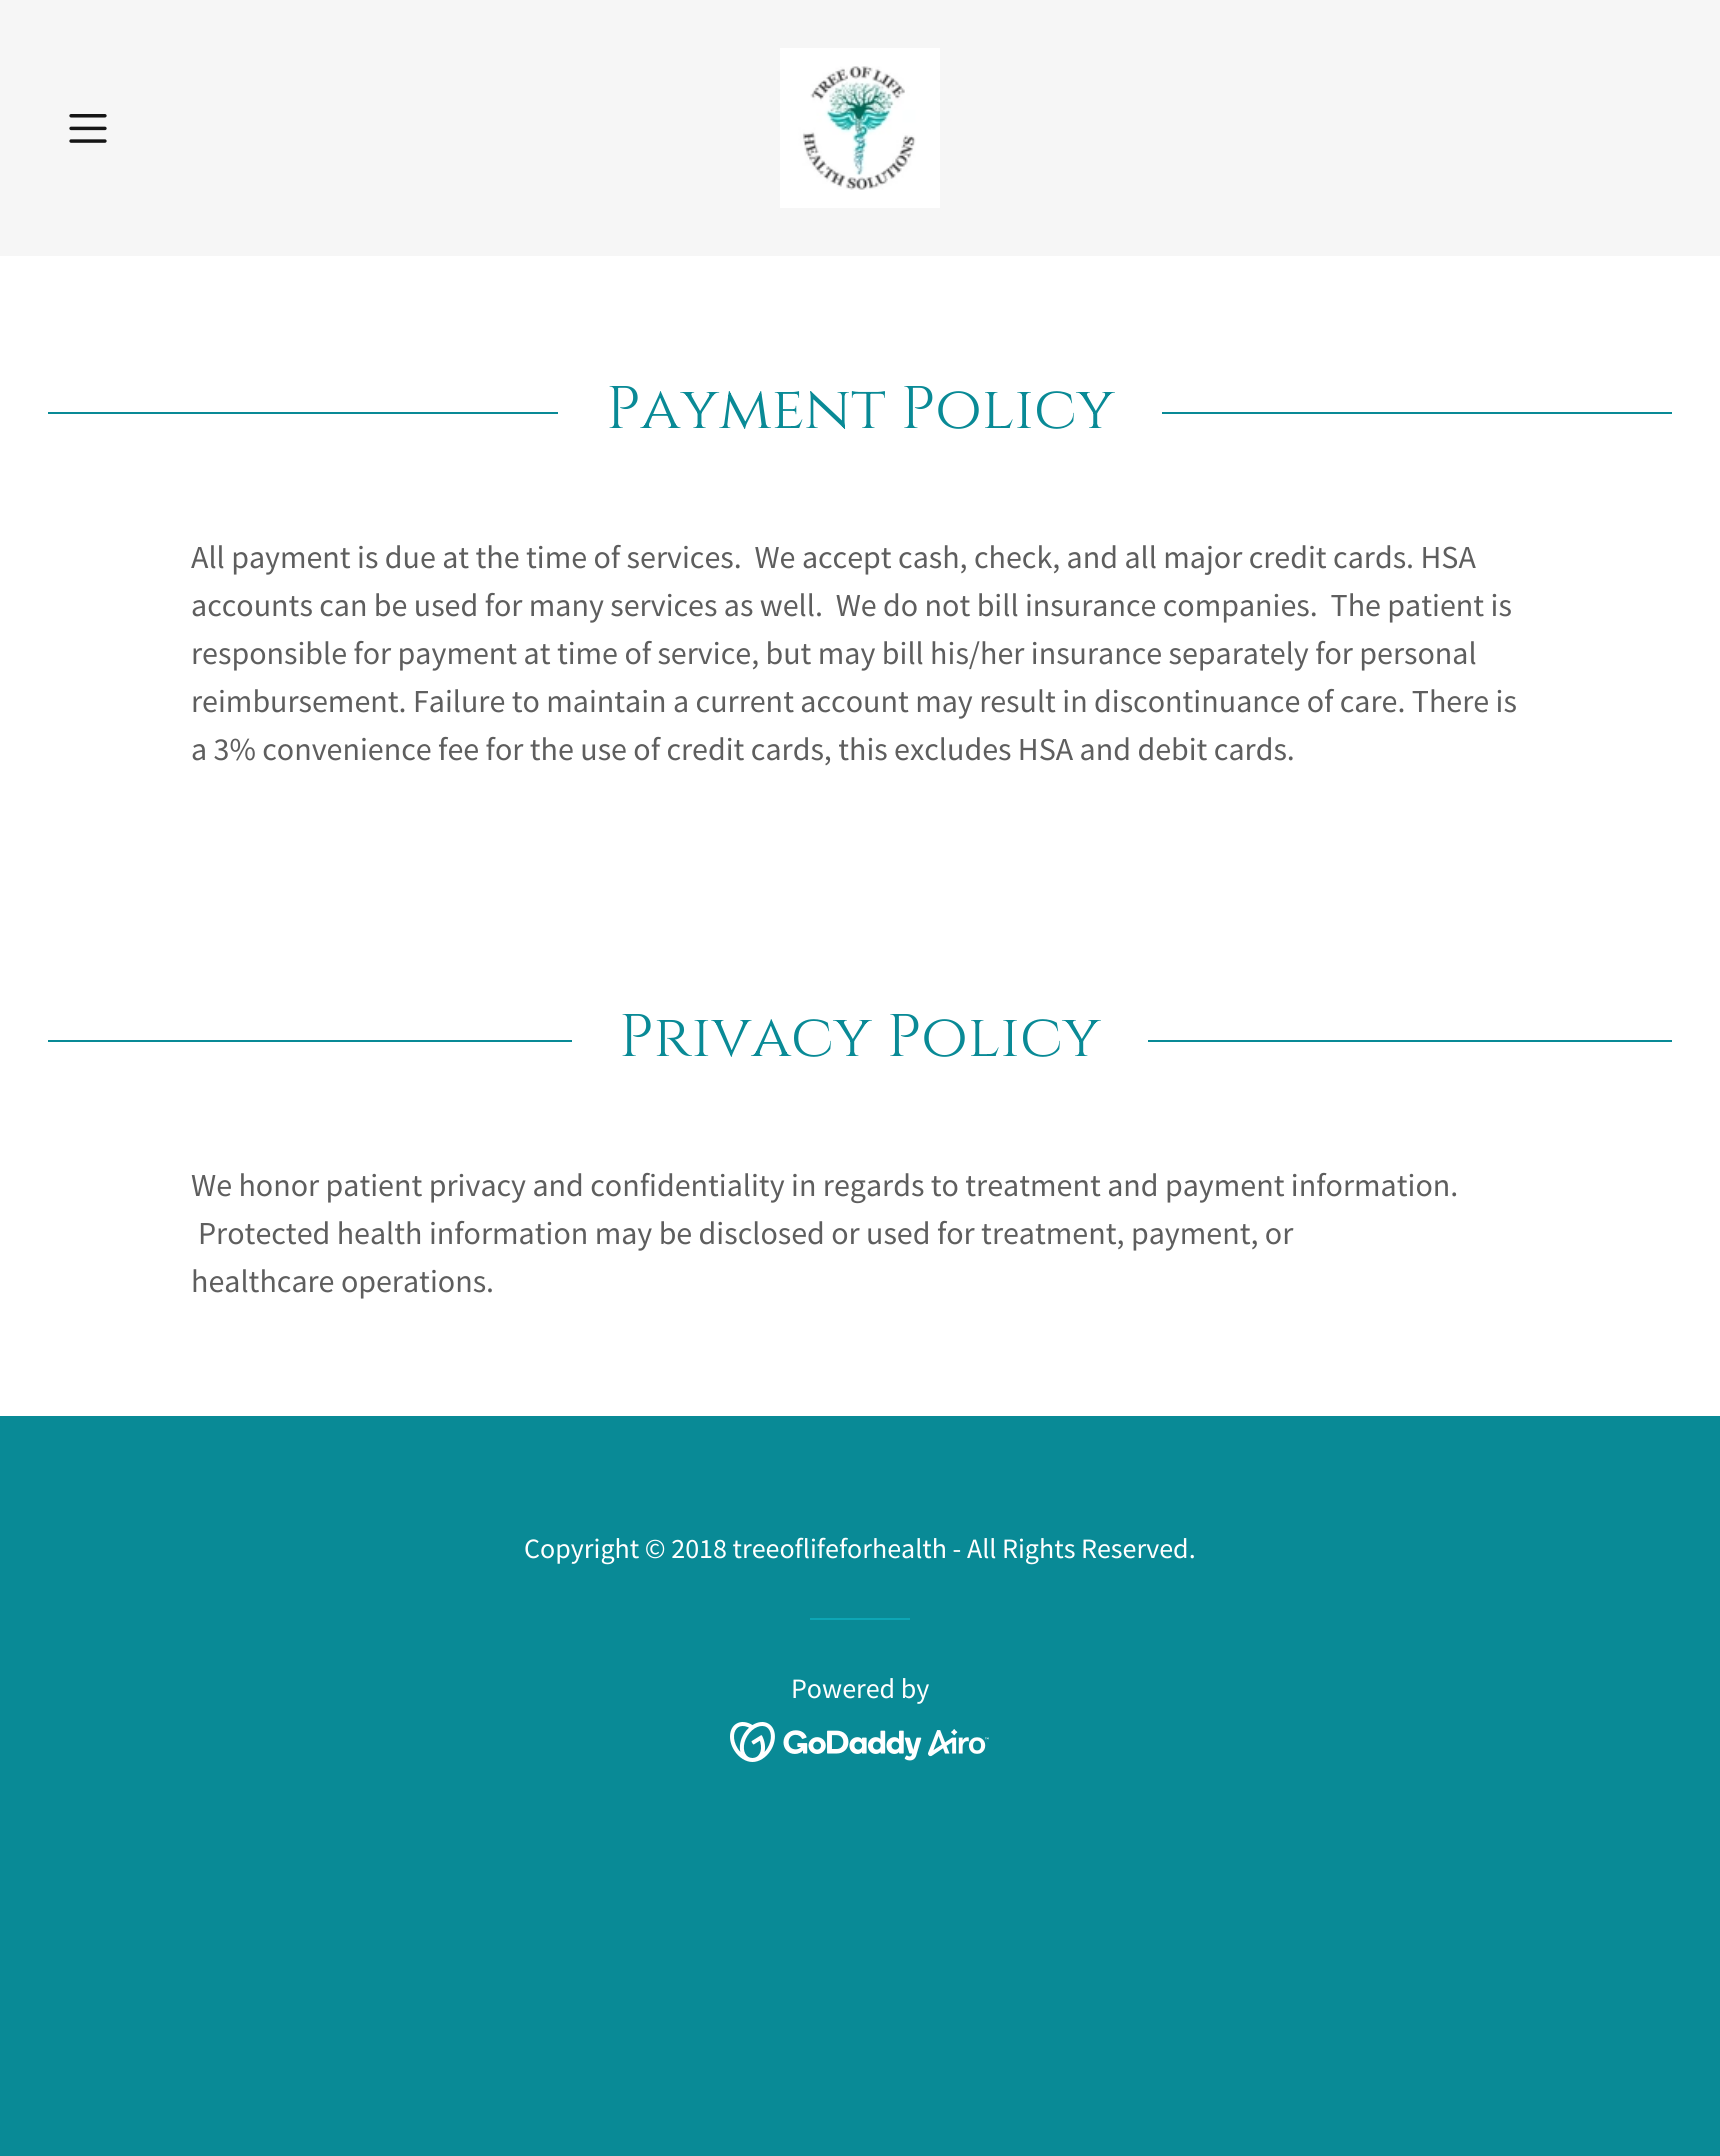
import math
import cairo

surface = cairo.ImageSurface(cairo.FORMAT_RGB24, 1720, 2156)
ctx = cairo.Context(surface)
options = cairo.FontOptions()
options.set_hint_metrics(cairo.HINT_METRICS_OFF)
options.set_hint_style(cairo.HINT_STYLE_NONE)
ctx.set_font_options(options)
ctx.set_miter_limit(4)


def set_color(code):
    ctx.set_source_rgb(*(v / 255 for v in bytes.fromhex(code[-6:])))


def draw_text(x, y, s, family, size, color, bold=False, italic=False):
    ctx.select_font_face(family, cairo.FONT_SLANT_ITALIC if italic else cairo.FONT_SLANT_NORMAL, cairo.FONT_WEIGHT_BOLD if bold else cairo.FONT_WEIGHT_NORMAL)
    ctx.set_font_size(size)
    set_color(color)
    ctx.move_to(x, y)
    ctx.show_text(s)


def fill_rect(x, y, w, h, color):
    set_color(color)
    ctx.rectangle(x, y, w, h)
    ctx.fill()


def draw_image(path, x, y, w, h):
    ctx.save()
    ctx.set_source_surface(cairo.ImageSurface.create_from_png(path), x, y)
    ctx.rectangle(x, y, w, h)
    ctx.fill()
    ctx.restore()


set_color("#098a96")
ctx.paint()
fill_rect(0, 0, 1720, 256, "#f6f6f6")
draw_image("assets/img1.png", 69, 114, 38, 29)
draw_image("assets/img2.png", 780, 48, 160, 160)
fill_rect(0, 256, 1720, 1160, "#ffffff")
fill_rect(48, 412, 510, 2, "#098a96")
draw_text(606, 428, "Payment Policy", "Cinzel", 60, "#098a96")
fill_rect(1162, 412, 510, 2, "#098a96")
draw_text(191, 568, "All payment is due at the time of services.  We accept cash, check, and all major credit cards. HSA", "Source Sans Pro", 32, "#5e5e5e")
draw_text(191, 616, "accounts can be used for many services as well.  We do not bill insurance companies.  The patient is", "Source Sans Pro", 32, "#5e5e5e")
draw_text(191, 664, "responsible for payment at time of service, but may bill his/her insurance separately for personal", "Source Sans Pro", 32, "#5e5e5e")
draw_text(191, 712, "reimbursement. Failure to maintain a current account may result in discontinuance of care. There is", "Source Sans Pro", 32, "#5e5e5e")
draw_text(191, 760, "a 3% convenience fee for the use of credit cards, this excludes HSA and debit cards.", "Source Sans Pro", 32, "#5e5e5e")
fill_rect(48, 1040, 524, 2, "#098a96")
draw_text(619, 1056, "Privacy Policy", "Cinzel", 60, "#098a96")
fill_rect(1148, 1040, 524, 2, "#098a96")
draw_text(191, 1196, "We honor patient privacy and confidentiality in regards to treatment and payment information.", "Source Sans Pro", 32, "#5e5e5e")
draw_text(198, 1244, "Protected health information may be disclosed or used for treatment, payment, or", "Source Sans Pro", 32, "#5e5e5e")
draw_text(191, 1292, "healthcare operations.", "Source Sans Pro", 32, "#5e5e5e")
draw_text(524, 1558, "Copyright © 2018 treeoflifeforhealth - All Rights Reserved.", "Source Sans Pro", 28, "#ffffff")
fill_rect(810, 1618, 100, 2, "#0da6b5")
draw_text(791, 1698, "Powered by", "Source Sans Pro", 28, "#ffffff")
draw_image("assets/img3.png", 730, 1722, 259, 40)
surface.write_to_png("output.png")
